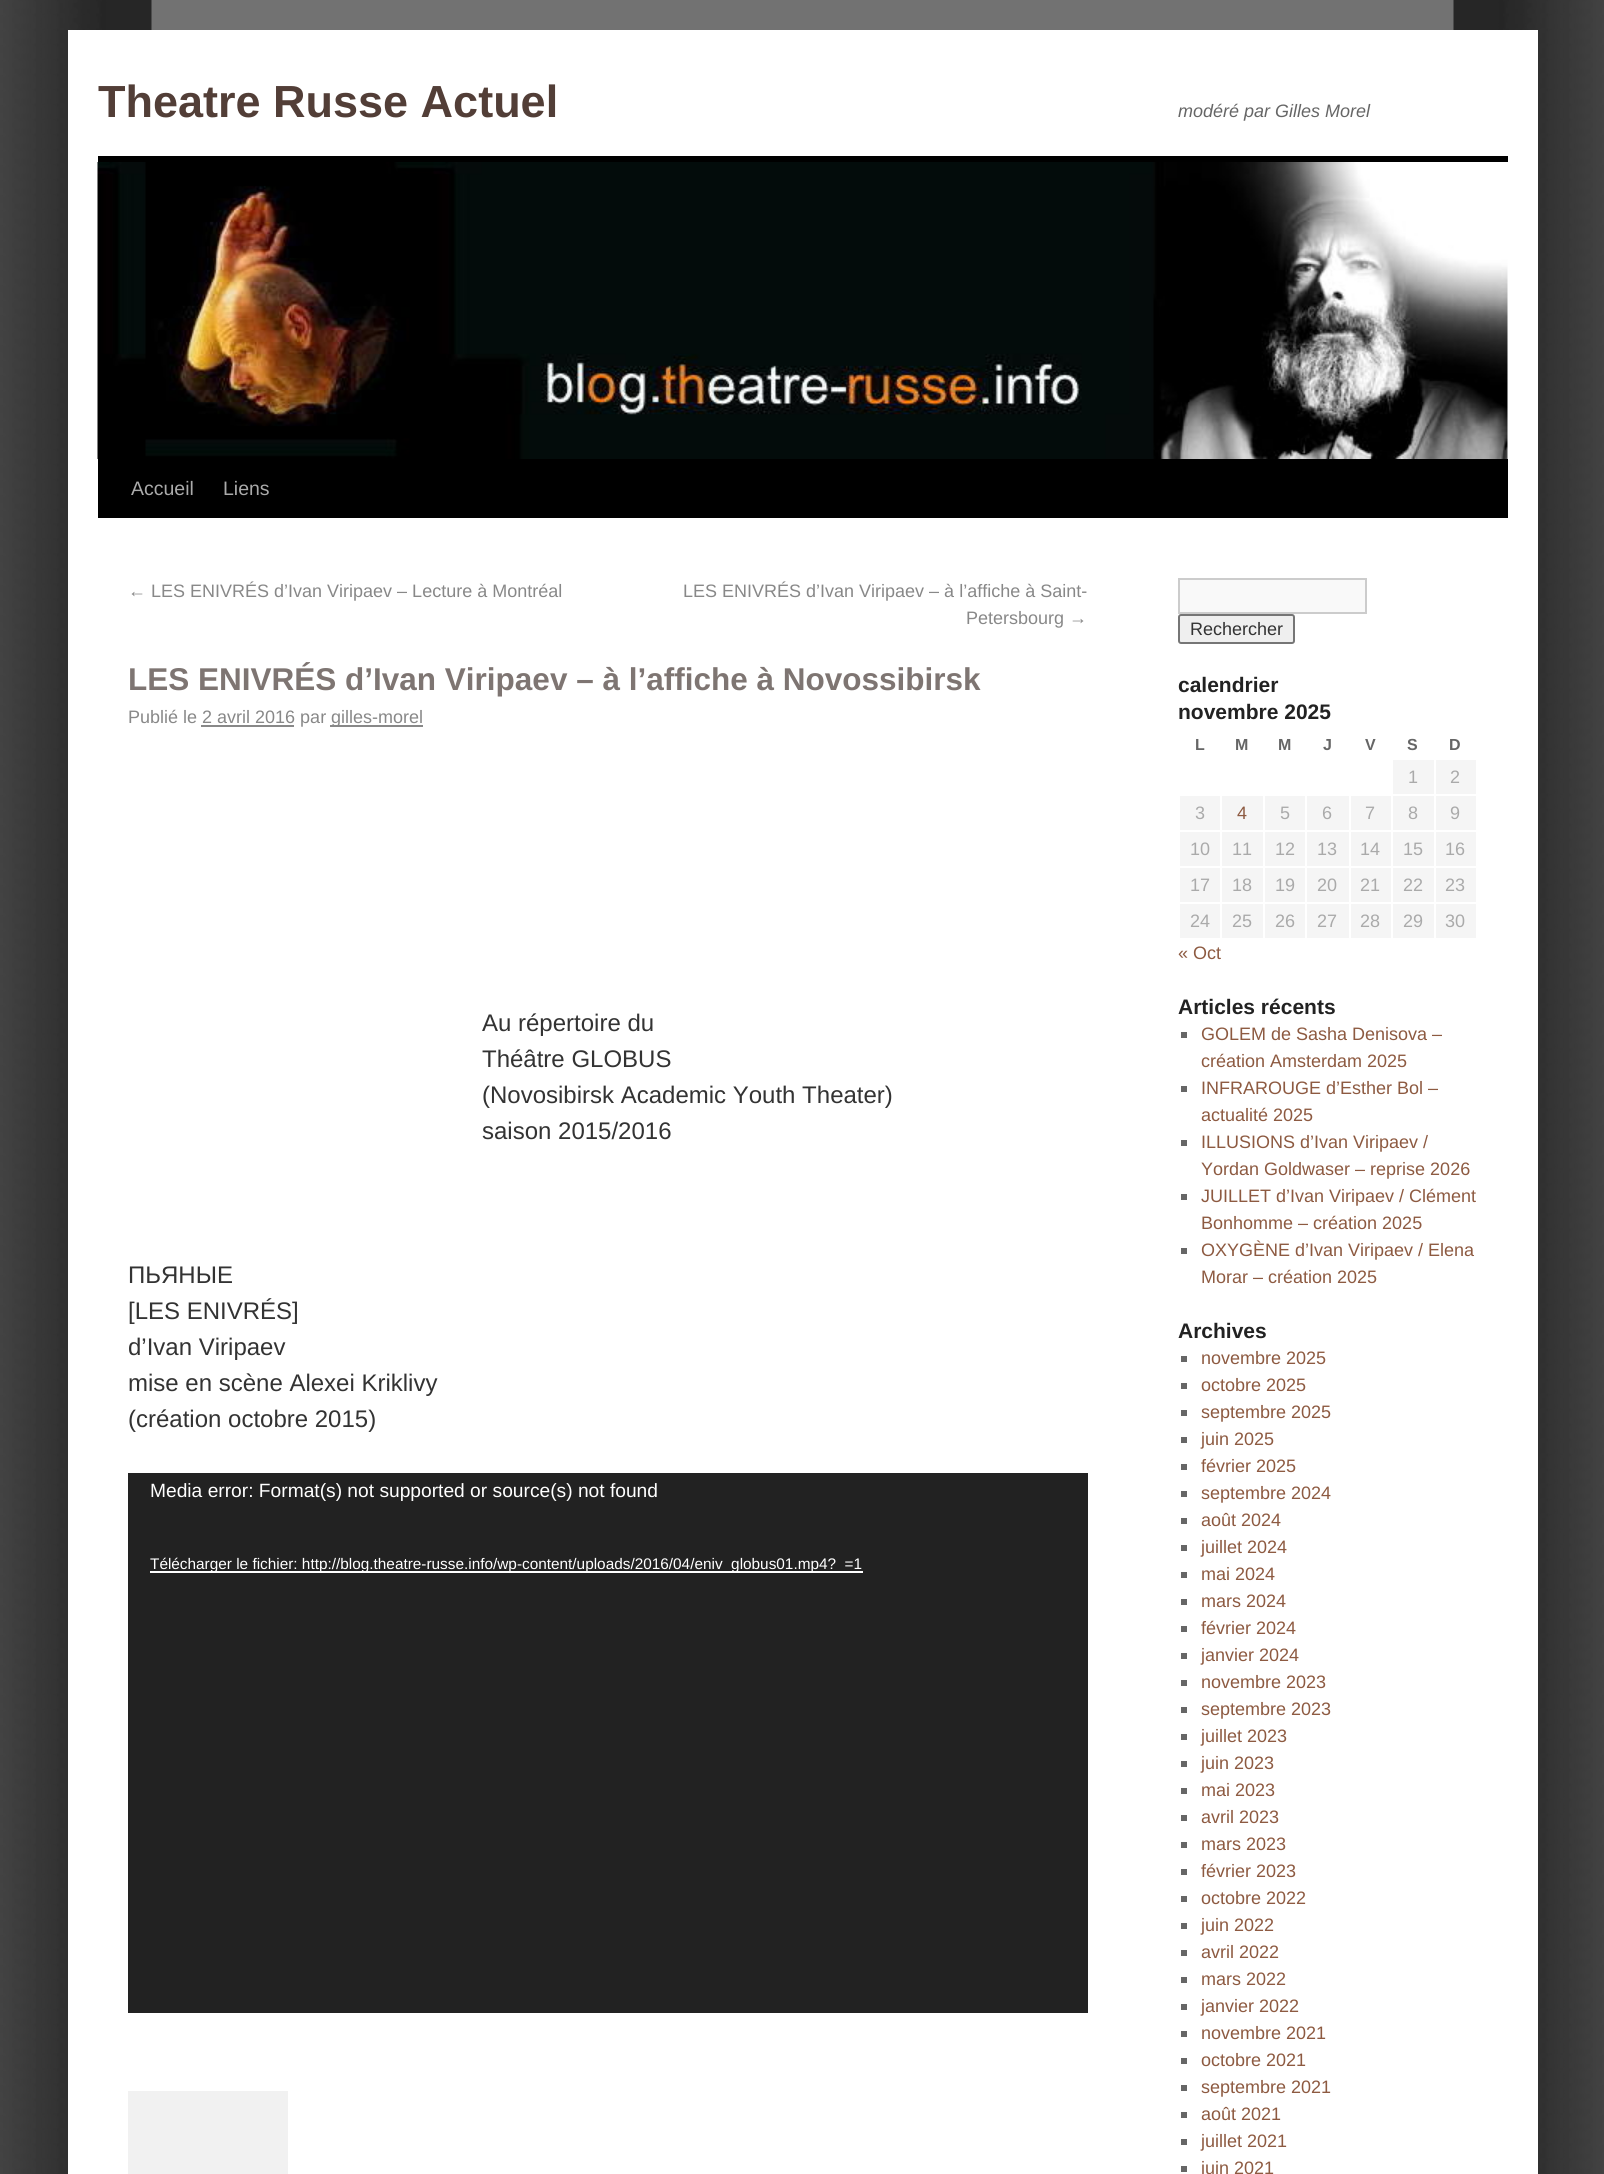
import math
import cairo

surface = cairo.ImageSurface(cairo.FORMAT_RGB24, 1604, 2174)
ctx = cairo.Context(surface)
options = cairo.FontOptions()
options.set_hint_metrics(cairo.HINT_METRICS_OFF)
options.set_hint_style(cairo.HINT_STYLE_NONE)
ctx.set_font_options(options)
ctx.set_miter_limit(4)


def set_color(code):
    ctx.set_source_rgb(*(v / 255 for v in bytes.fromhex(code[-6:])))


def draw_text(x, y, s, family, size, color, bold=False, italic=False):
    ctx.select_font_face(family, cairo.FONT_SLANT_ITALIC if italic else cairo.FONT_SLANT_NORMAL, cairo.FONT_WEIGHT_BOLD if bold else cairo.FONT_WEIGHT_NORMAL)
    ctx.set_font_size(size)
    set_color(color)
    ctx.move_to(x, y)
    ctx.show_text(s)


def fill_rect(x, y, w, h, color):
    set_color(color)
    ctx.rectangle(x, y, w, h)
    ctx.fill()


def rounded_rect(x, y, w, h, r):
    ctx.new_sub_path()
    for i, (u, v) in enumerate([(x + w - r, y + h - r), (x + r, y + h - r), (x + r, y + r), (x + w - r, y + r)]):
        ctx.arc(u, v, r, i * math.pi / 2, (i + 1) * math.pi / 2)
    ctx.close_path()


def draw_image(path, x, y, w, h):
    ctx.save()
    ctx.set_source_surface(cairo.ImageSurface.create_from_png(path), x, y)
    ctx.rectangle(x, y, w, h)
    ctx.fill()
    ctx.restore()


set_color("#ffffff")
ctx.paint()
draw_image("assets/img1.png", 0, 0, 1604, 2174)
fill_rect(68, 30, 1470, 2144, "#ffffff")
draw_text(98, 117, "Theatre Russe Actuel", "Liberation Sans", 45, "#523e37", bold=True)
draw_text(1178, 117, "modéré par Gilles Morel", "Liberation Sans", 18, "#666666", italic=True)
fill_rect(98, 156, 1410, 6, "#000000")
fill_rect(98, 459, 1410, 59, "#000000")
draw_image("assets/img2.png", 97, 162, 1411, 297)
draw_text(131, 495, "Accueil", "Liberation Sans", 19.5, "#aaaaaa")
draw_text(223, 495, "Liens", "Liberation Sans", 19.5, "#aaaaaa")
draw_text(128, 597, "← LES ENIVRÉS d’Ivan Viripaev – Lecture à Montréal", "Liberation Sans", 18, "#888888")
draw_text(683, 597, "LES ENIVRÉS d’Ivan Viripaev – à l’affiche à Saint-", "Liberation Sans", 18, "#888888")
draw_text(966, 624, "Petersbourg →", "Liberation Sans", 18, "#888888")
draw_text(128, 690, "LES ENIVRÉS d’Ivan Viripaev – à l’affiche à Novossibirsk", "Liberation Sans", 31.5, "#7e7572", bold=True)
draw_text(128, 723, "Publié le 2 avril 2016 par", "Liberation Sans", 18, "#888888")
fill_rect(330, 725, 93, 2, "#888888")
draw_text(331, 723, "gilles-morel", "Liberation Sans", 18, "#888888")
fill_rect(201, 725, 93, 2, "#888888")
draw_text(482, 1031, "Au répertoire du", "Liberation Sans", 24, "#333333")
draw_text(482, 1067, "Théâtre GLOBUS", "Liberation Sans", 24, "#333333")
draw_text(482, 1103, "(Novosibirsk Academic Youth Theater)", "Liberation Sans", 24, "#333333")
draw_text(482, 1139, "saison 2015/2016", "Liberation Sans", 24, "#333333")
draw_text(128, 1283, "ПЬЯНЫЕ", "Liberation Sans", 24, "#333333")
draw_text(128, 1319, "[LES ENIVRÉS]", "Liberation Sans", 24, "#333333")
draw_text(128, 1355, "d’Ivan Viripaev", "Liberation Sans", 24, "#333333")
draw_text(128, 1391, "mise en scène Alexei Kriklivy", "Liberation Sans", 24, "#333333")
draw_text(128, 1427, "(création octobre 2015)", "Liberation Sans", 24, "#333333")
fill_rect(128, 1473, 960, 540, "#222222")
draw_text(150, 1497, "Media error: Format(s) not supported or source(s) not found", "Liberation Sans", 19.2, "#ffffff")
fill_rect(150, 1571, 713, 2, "#ffffff")
draw_text(150, 1569, "Télécharger le fichier: http://blog.theatre-russe.info/wp-content/uploads/2016/04/eniv_globus01.mp4?_=1", "Liberation Sans", 15.35, "#ffffff")
fill_rect(128, 2091, 160, 83, "#f1f1f1")
set_color("#f9f9f9")
ctx.rectangle(1179, 579, 187, 34)
ctx.fill_preserve()
set_color("#cccccc")
ctx.stroke()
set_color("#efefef")
rounded_rect(1179, 615, 115, 28, 2)
ctx.fill_preserve()
set_color("#767676")
ctx.stroke()
draw_text(1190, 635, "Rechercher", "Liberation Sans", 18, "#333333")
draw_text(1178, 692, "calendrier", "Liberation Sans", 21, "#222222", bold=True)
draw_text(1178, 719, "novembre 2025", "Liberation Sans", 21, "#222222", bold=True)
draw_text(1195, 750, "L", "Liberation Sans", 16, "#666666", bold=True)
draw_text(1235, 750, "M", "Liberation Sans", 16, "#666666", bold=True)
draw_text(1278, 750, "M", "Liberation Sans", 16, "#666666", bold=True)
draw_text(1323, 750, "J", "Liberation Sans", 16, "#666666", bold=True)
draw_text(1365, 750, "V", "Liberation Sans", 16, "#666666", bold=True)
draw_text(1407, 750, "S", "Liberation Sans", 16, "#666666", bold=True)
draw_text(1449, 750, "D", "Liberation Sans", 16, "#666666", bold=True)
fill_rect(1393, 760, 41, 34, "#f5f5f5")
draw_text(1408, 783, "1", "Liberation Sans", 18, "#aaaaaa")
fill_rect(1436, 760, 40, 34, "#f5f5f5")
draw_text(1450, 783, "2", "Liberation Sans", 18, "#aaaaaa")
fill_rect(1180, 796, 40, 34, "#f5f5f5")
draw_text(1195, 819, "3", "Liberation Sans", 18, "#aaaaaa")
fill_rect(1222, 796, 41, 34, "#f5f5f5")
draw_text(1237, 819, "4", "Liberation Sans", 18, "#8d5a41")
fill_rect(1265, 796, 40, 34, "#f5f5f5")
draw_text(1280, 819, "5", "Liberation Sans", 18, "#aaaaaa")
fill_rect(1307, 796, 42, 34, "#f5f5f5")
draw_text(1322, 819, "6", "Liberation Sans", 18, "#aaaaaa")
fill_rect(1351, 796, 40, 34, "#f5f5f5")
draw_text(1365, 819, "7", "Liberation Sans", 18, "#aaaaaa")
fill_rect(1393, 796, 41, 34, "#f5f5f5")
draw_text(1408, 819, "8", "Liberation Sans", 18, "#aaaaaa")
fill_rect(1436, 796, 40, 34, "#f5f5f5")
draw_text(1450, 819, "9", "Liberation Sans", 18, "#aaaaaa")
fill_rect(1180, 832, 40, 34, "#f5f5f5")
draw_text(1190, 855, "10", "Liberation Sans", 18, "#aaaaaa")
fill_rect(1222, 832, 41, 34, "#f5f5f5")
draw_text(1232, 855, "11", "Liberation Sans", 18, "#aaaaaa")
fill_rect(1265, 832, 40, 34, "#f5f5f5")
draw_text(1275, 855, "12", "Liberation Sans", 18, "#aaaaaa")
fill_rect(1307, 832, 42, 34, "#f5f5f5")
draw_text(1317, 855, "13", "Liberation Sans", 18, "#aaaaaa")
fill_rect(1351, 832, 40, 34, "#f5f5f5")
draw_text(1360, 855, "14", "Liberation Sans", 18, "#aaaaaa")
fill_rect(1393, 832, 41, 34, "#f5f5f5")
draw_text(1403, 855, "15", "Liberation Sans", 18, "#aaaaaa")
fill_rect(1436, 832, 40, 34, "#f5f5f5")
draw_text(1445, 855, "16", "Liberation Sans", 18, "#aaaaaa")
fill_rect(1180, 868, 40, 34, "#f5f5f5")
draw_text(1190, 891, "17", "Liberation Sans", 18, "#aaaaaa")
fill_rect(1222, 868, 41, 34, "#f5f5f5")
draw_text(1232, 891, "18", "Liberation Sans", 18, "#aaaaaa")
fill_rect(1265, 868, 40, 34, "#f5f5f5")
draw_text(1275, 891, "19", "Liberation Sans", 18, "#aaaaaa")
fill_rect(1307, 868, 42, 34, "#f5f5f5")
draw_text(1317, 891, "20", "Liberation Sans", 18, "#aaaaaa")
fill_rect(1351, 868, 40, 34, "#f5f5f5")
draw_text(1360, 891, "21", "Liberation Sans", 18, "#aaaaaa")
fill_rect(1393, 868, 41, 34, "#f5f5f5")
draw_text(1403, 891, "22", "Liberation Sans", 18, "#aaaaaa")
fill_rect(1436, 868, 40, 34, "#f5f5f5")
draw_text(1445, 891, "23", "Liberation Sans", 18, "#aaaaaa")
fill_rect(1180, 904, 40, 34, "#f5f5f5")
draw_text(1190, 927, "24", "Liberation Sans", 18, "#aaaaaa")
fill_rect(1222, 904, 41, 34, "#f5f5f5")
draw_text(1232, 927, "25", "Liberation Sans", 18, "#aaaaaa")
fill_rect(1265, 904, 40, 34, "#f5f5f5")
draw_text(1275, 927, "26", "Liberation Sans", 18, "#aaaaaa")
fill_rect(1307, 904, 42, 34, "#f5f5f5")
draw_text(1317, 927, "27", "Liberation Sans", 18, "#aaaaaa")
fill_rect(1351, 904, 40, 34, "#f5f5f5")
draw_text(1360, 927, "28", "Liberation Sans", 18, "#aaaaaa")
fill_rect(1393, 904, 41, 34, "#f5f5f5")
draw_text(1403, 927, "29", "Liberation Sans", 18, "#aaaaaa")
fill_rect(1436, 904, 40, 34, "#f5f5f5")
draw_text(1445, 927, "30", "Liberation Sans", 18, "#aaaaaa")
draw_text(1178, 959, "« Oct", "Liberation Sans", 18, "#8d5a41")
draw_text(1178, 1014, "Articles récents", "Liberation Sans", 21, "#222222", bold=True)
fill_rect(1181, 1032, 6, 6, "#666666")
draw_text(1201, 1040, "GOLEM de Sasha Denisova –", "Liberation Sans", 18, "#8d5a41")
draw_text(1201, 1067, "création Amsterdam 2025", "Liberation Sans", 18, "#8d5a41")
fill_rect(1181, 1086, 6, 6, "#666666")
draw_text(1201, 1094, "INFRAROUGE d’Esther Bol –", "Liberation Sans", 18, "#8d5a41")
draw_text(1201, 1121, "actualité 2025", "Liberation Sans", 18, "#8d5a41")
fill_rect(1181, 1140, 6, 6, "#666666")
draw_text(1201, 1148, "ILLUSIONS d’Ivan Viripaev /", "Liberation Sans", 18, "#8d5a41")
draw_text(1201, 1175, "Yordan Goldwaser – reprise 2026", "Liberation Sans", 18, "#8d5a41")
fill_rect(1181, 1194, 6, 6, "#666666")
draw_text(1201, 1202, "JUILLET d’Ivan Viripaev / Clément", "Liberation Sans", 18, "#8d5a41")
draw_text(1201, 1229, "Bonhomme – création 2025", "Liberation Sans", 18, "#8d5a41")
fill_rect(1181, 1248, 6, 6, "#666666")
draw_text(1201, 1256, "OXYGÈNE d’Ivan Viripaev / Elena", "Liberation Sans", 18, "#8d5a41")
draw_text(1201, 1283, "Morar – création 2025", "Liberation Sans", 18, "#8d5a41")
draw_text(1178, 1338, "Archives", "Liberation Sans", 21, "#222222", bold=True)
fill_rect(1181, 1356, 6, 6, "#666666")
draw_text(1201, 1364, "novembre 2025", "Liberation Sans", 18, "#8d5a41")
fill_rect(1181, 1383, 6, 6, "#666666")
draw_text(1201, 1391, "octobre 2025", "Liberation Sans", 18, "#8d5a41")
fill_rect(1181, 1410, 6, 6, "#666666")
draw_text(1201, 1418, "septembre 2025", "Liberation Sans", 18, "#8d5a41")
fill_rect(1181, 1437, 6, 6, "#666666")
draw_text(1201, 1445, "juin 2025", "Liberation Sans", 18, "#8d5a41")
fill_rect(1181, 1464, 6, 6, "#666666")
draw_text(1201, 1472, "février 2025", "Liberation Sans", 18, "#8d5a41")
fill_rect(1181, 1491, 6, 6, "#666666")
draw_text(1201, 1499, "septembre 2024", "Liberation Sans", 18, "#8d5a41")
fill_rect(1181, 1518, 6, 6, "#666666")
draw_text(1201, 1526, "août 2024", "Liberation Sans", 18, "#8d5a41")
fill_rect(1181, 1545, 6, 6, "#666666")
draw_text(1201, 1553, "juillet 2024", "Liberation Sans", 18, "#8d5a41")
fill_rect(1181, 1572, 6, 6, "#666666")
draw_text(1201, 1580, "mai 2024", "Liberation Sans", 18, "#8d5a41")
fill_rect(1181, 1599, 6, 6, "#666666")
draw_text(1201, 1607, "mars 2024", "Liberation Sans", 18, "#8d5a41")
fill_rect(1181, 1626, 6, 6, "#666666")
draw_text(1201, 1634, "février 2024", "Liberation Sans", 18, "#8d5a41")
fill_rect(1181, 1653, 6, 6, "#666666")
draw_text(1201, 1661, "janvier 2024", "Liberation Sans", 18, "#8d5a41")
fill_rect(1181, 1680, 6, 6, "#666666")
draw_text(1201, 1688, "novembre 2023", "Liberation Sans", 18, "#8d5a41")
fill_rect(1181, 1707, 6, 6, "#666666")
draw_text(1201, 1715, "septembre 2023", "Liberation Sans", 18, "#8d5a41")
fill_rect(1181, 1734, 6, 6, "#666666")
draw_text(1201, 1742, "juillet 2023", "Liberation Sans", 18, "#8d5a41")
fill_rect(1181, 1761, 6, 6, "#666666")
draw_text(1201, 1769, "juin 2023", "Liberation Sans", 18, "#8d5a41")
fill_rect(1181, 1788, 6, 6, "#666666")
draw_text(1201, 1796, "mai 2023", "Liberation Sans", 18, "#8d5a41")
fill_rect(1181, 1815, 6, 6, "#666666")
draw_text(1201, 1823, "avril 2023", "Liberation Sans", 18, "#8d5a41")
fill_rect(1181, 1842, 6, 6, "#666666")
draw_text(1201, 1850, "mars 2023", "Liberation Sans", 18, "#8d5a41")
fill_rect(1181, 1869, 6, 6, "#666666")
draw_text(1201, 1877, "février 2023", "Liberation Sans", 18, "#8d5a41")
fill_rect(1181, 1896, 6, 6, "#666666")
draw_text(1201, 1904, "octobre 2022", "Liberation Sans", 18, "#8d5a41")
fill_rect(1181, 1923, 6, 6, "#666666")
draw_text(1201, 1931, "juin 2022", "Liberation Sans", 18, "#8d5a41")
fill_rect(1181, 1950, 6, 6, "#666666")
draw_text(1201, 1958, "avril 2022", "Liberation Sans", 18, "#8d5a41")
fill_rect(1181, 1977, 6, 6, "#666666")
draw_text(1201, 1985, "mars 2022", "Liberation Sans", 18, "#8d5a41")
fill_rect(1181, 2004, 6, 6, "#666666")
draw_text(1201, 2012, "janvier 2022", "Liberation Sans", 18, "#8d5a41")
fill_rect(1181, 2031, 6, 6, "#666666")
draw_text(1201, 2039, "novembre 2021", "Liberation Sans", 18, "#8d5a41")
fill_rect(1181, 2058, 6, 6, "#666666")
draw_text(1201, 2066, "octobre 2021", "Liberation Sans", 18, "#8d5a41")
fill_rect(1181, 2085, 6, 6, "#666666")
draw_text(1201, 2093, "septembre 2021", "Liberation Sans", 18, "#8d5a41")
fill_rect(1181, 2112, 6, 6, "#666666")
draw_text(1201, 2120, "août 2021", "Liberation Sans", 18, "#8d5a41")
fill_rect(1181, 2139, 6, 6, "#666666")
draw_text(1201, 2147, "juillet 2021", "Liberation Sans", 18, "#8d5a41")
fill_rect(1181, 2166, 6, 6, "#666666")
draw_text(1201, 2174, "juin 2021", "Liberation Sans", 18, "#8d5a41")
surface.write_to_png("output.png")
